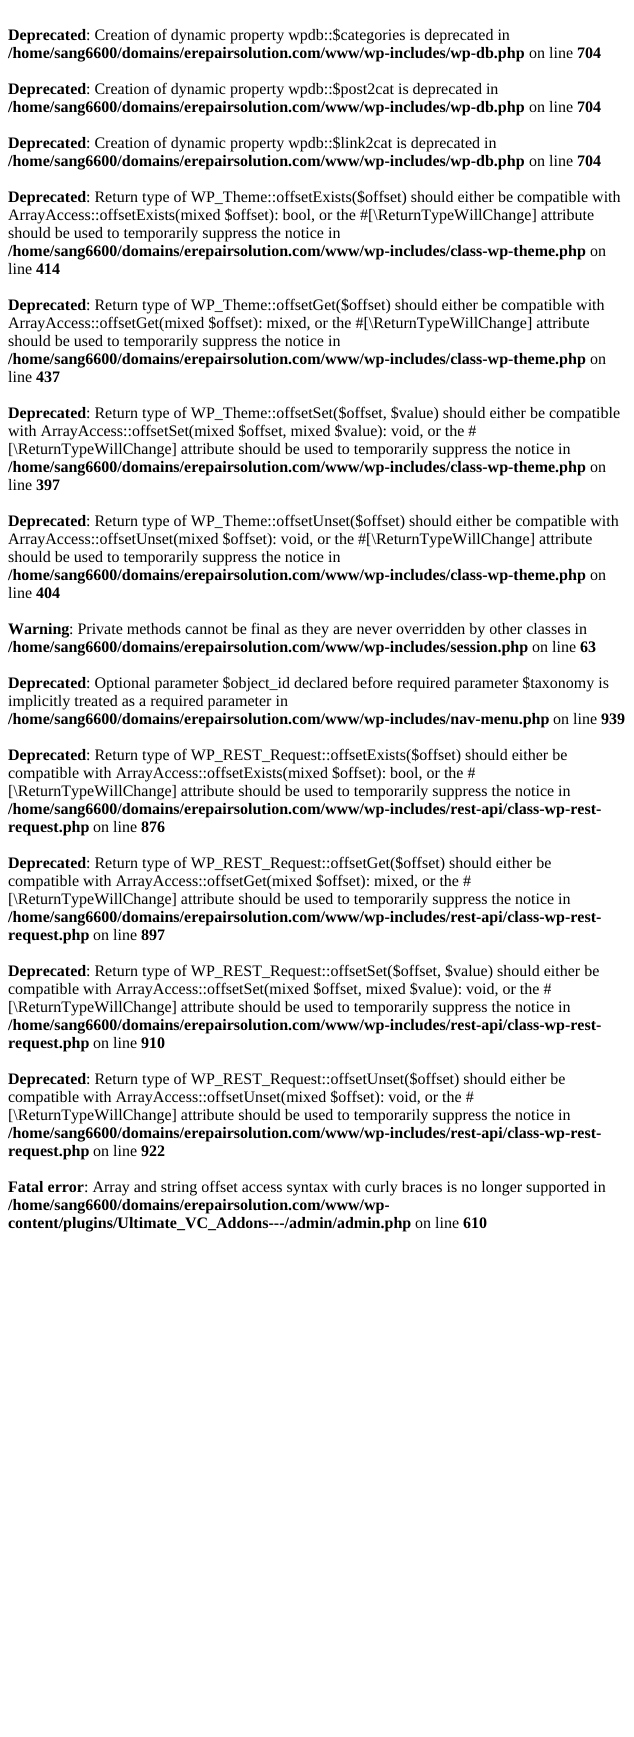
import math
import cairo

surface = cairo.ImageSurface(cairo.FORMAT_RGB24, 634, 1737)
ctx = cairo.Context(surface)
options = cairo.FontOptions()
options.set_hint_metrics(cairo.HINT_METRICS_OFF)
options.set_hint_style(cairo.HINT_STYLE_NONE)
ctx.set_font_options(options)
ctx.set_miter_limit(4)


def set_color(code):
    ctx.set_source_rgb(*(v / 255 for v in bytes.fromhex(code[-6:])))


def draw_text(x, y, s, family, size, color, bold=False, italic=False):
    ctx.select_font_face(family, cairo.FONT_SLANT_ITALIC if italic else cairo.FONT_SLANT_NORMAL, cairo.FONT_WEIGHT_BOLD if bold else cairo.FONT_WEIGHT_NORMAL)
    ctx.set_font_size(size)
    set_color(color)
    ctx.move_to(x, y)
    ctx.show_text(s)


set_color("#ffffff")
ctx.paint()
draw_text(8, 40, "Deprecated", "Liberation Serif", 16, "#000000", bold=True)
draw_text(86, 40, ": Creation of dynamic property wpdb::$categories is deprecated in", "Liberation Serif", 16, "#000000")
draw_text(8, 58, "/home/sang6600/domains/erepairsolution.com/www/wp-includes/wp-db.php", "Liberation Serif", 16, "#000000", bold=True)
draw_text(529, 58, "on line", "Liberation Serif", 16, "#000000")
draw_text(577, 58, "704", "Liberation Serif", 16, "#000000", bold=True)
draw_text(8, 94, "Deprecated", "Liberation Serif", 16, "#000000", bold=True)
draw_text(86, 94, ": Creation of dynamic property wpdb::$post2cat is deprecated in", "Liberation Serif", 16, "#000000")
draw_text(8, 112, "/home/sang6600/domains/erepairsolution.com/www/wp-includes/wp-db.php", "Liberation Serif", 16, "#000000", bold=True)
draw_text(529, 112, "on line", "Liberation Serif", 16, "#000000")
draw_text(577, 112, "704", "Liberation Serif", 16, "#000000", bold=True)
draw_text(8, 148, "Deprecated", "Liberation Serif", 16, "#000000", bold=True)
draw_text(86, 148, ": Creation of dynamic property wpdb::$link2cat is deprecated in", "Liberation Serif", 16, "#000000")
draw_text(8, 166, "/home/sang6600/domains/erepairsolution.com/www/wp-includes/wp-db.php", "Liberation Serif", 16, "#000000", bold=True)
draw_text(529, 166, "on line", "Liberation Serif", 16, "#000000")
draw_text(577, 166, "704", "Liberation Serif", 16, "#000000", bold=True)
draw_text(8, 202, "Deprecated", "Liberation Serif", 16, "#000000", bold=True)
draw_text(86, 202, ": Return type of WP_Theme::offsetExists($offset) should either be compatible with", "Liberation Serif", 16, "#000000")
draw_text(8, 220, "ArrayAccess::offsetExists(mixed $offset): bool, or the #[\\ReturnTypeWillChange] attribute", "Liberation Serif", 16, "#000000")
draw_text(8, 238, "should be used to temporarily suppress the notice in", "Liberation Serif", 16, "#000000")
draw_text(8, 256, "/home/sang6600/domains/erepairsolution.com/www/wp-includes/class-wp-theme.php", "Liberation Serif", 16, "#000000", bold=True)
draw_text(590, 256, "on", "Liberation Serif", 16, "#000000")
draw_text(8, 274, "line", "Liberation Serif", 16, "#000000")
draw_text(36, 274, "414", "Liberation Serif", 16, "#000000", bold=True)
draw_text(8, 310, "Deprecated", "Liberation Serif", 16, "#000000", bold=True)
draw_text(86, 310, ": Return type of WP_Theme::offsetGet($offset) should either be compatible with", "Liberation Serif", 16, "#000000")
draw_text(8, 328, "ArrayAccess::offsetGet(mixed $offset): mixed, or the #[\\ReturnTypeWillChange] attribute", "Liberation Serif", 16, "#000000")
draw_text(8, 346, "should be used to temporarily suppress the notice in", "Liberation Serif", 16, "#000000")
draw_text(8, 364, "/home/sang6600/domains/erepairsolution.com/www/wp-includes/class-wp-theme.php", "Liberation Serif", 16, "#000000", bold=True)
draw_text(590, 364, "on", "Liberation Serif", 16, "#000000")
draw_text(8, 382, "line", "Liberation Serif", 16, "#000000")
draw_text(36, 382, "437", "Liberation Serif", 16, "#000000", bold=True)
draw_text(8, 418, "Deprecated", "Liberation Serif", 16, "#000000", bold=True)
draw_text(86, 418, ": Return type of WP_Theme::offsetSet($offset, $value) should either be compatible", "Liberation Serif", 16, "#000000")
draw_text(8, 436, "with ArrayAccess::offsetSet(mixed $offset, mixed $value): void, or the #", "Liberation Serif", 16, "#000000")
draw_text(8, 454, "[\\ReturnTypeWillChange] attribute should be used to temporarily suppress the notice in", "Liberation Serif", 16, "#000000")
draw_text(8, 472, "/home/sang6600/domains/erepairsolution.com/www/wp-includes/class-wp-theme.php", "Liberation Serif", 16, "#000000", bold=True)
draw_text(590, 472, "on", "Liberation Serif", 16, "#000000")
draw_text(8, 490, "line", "Liberation Serif", 16, "#000000")
draw_text(36, 490, "397", "Liberation Serif", 16, "#000000", bold=True)
draw_text(8, 526, "Deprecated", "Liberation Serif", 16, "#000000", bold=True)
draw_text(86, 526, ": Return type of WP_Theme::offsetUnset($offset) should either be compatible with", "Liberation Serif", 16, "#000000")
draw_text(8, 544, "ArrayAccess::offsetUnset(mixed $offset): void, or the #[\\ReturnTypeWillChange] attribute", "Liberation Serif", 16, "#000000")
draw_text(8, 562, "should be used to temporarily suppress the notice in", "Liberation Serif", 16, "#000000")
draw_text(8, 580, "/home/sang6600/domains/erepairsolution.com/www/wp-includes/class-wp-theme.php", "Liberation Serif", 16, "#000000", bold=True)
draw_text(590, 580, "on", "Liberation Serif", 16, "#000000")
draw_text(8, 598, "line", "Liberation Serif", 16, "#000000")
draw_text(36, 598, "404", "Liberation Serif", 16, "#000000", bold=True)
draw_text(8, 634, "Warning", "Liberation Serif", 16, "#000000", bold=True)
draw_text(69, 634, ": Private methods cannot be final as they are never overridden by other classes in", "Liberation Serif", 16, "#000000")
draw_text(8, 652, "/home/sang6600/domains/erepairsolution.com/www/wp-includes/session.php", "Liberation Serif", 16, "#000000", bold=True)
draw_text(532, 652, "on line", "Liberation Serif", 16, "#000000")
draw_text(580, 652, "63", "Liberation Serif", 16, "#000000", bold=True)
draw_text(8, 688, "Deprecated", "Liberation Serif", 16, "#000000", bold=True)
draw_text(86, 688, ": Optional parameter $object_id declared before required parameter $taxonomy is", "Liberation Serif", 16, "#000000")
draw_text(8, 706, "implicitly treated as a required parameter in", "Liberation Serif", 16, "#000000")
draw_text(8, 724, "/home/sang6600/domains/erepairsolution.com/www/wp-includes/nav-menu.php", "Liberation Serif", 16, "#000000", bold=True)
draw_text(553, 724, "on line", "Liberation Serif", 16, "#000000")
draw_text(601, 724, "939", "Liberation Serif", 16, "#000000", bold=True)
draw_text(8, 760, "Deprecated", "Liberation Serif", 16, "#000000", bold=True)
draw_text(86, 760, ": Return type of WP_REST_Request::offsetExists($offset) should either be", "Liberation Serif", 16, "#000000")
draw_text(8, 778, "compatible with ArrayAccess::offsetExists(mixed $offset): bool, or the #", "Liberation Serif", 16, "#000000")
draw_text(8, 796, "[\\ReturnTypeWillChange] attribute should be used to temporarily suppress the notice in", "Liberation Serif", 16, "#000000")
draw_text(8, 814, "/home/sang6600/domains/erepairsolution.com/www/wp-includes/rest-api/class-wp-rest-", "Liberation Serif", 16, "#000000", bold=True)
draw_text(8, 832, "request.php", "Liberation Serif", 16, "#000000", bold=True)
draw_text(93, 832, "on line", "Liberation Serif", 16, "#000000")
draw_text(141, 832, "876", "Liberation Serif", 16, "#000000", bold=True)
draw_text(8, 868, "Deprecated", "Liberation Serif", 16, "#000000", bold=True)
draw_text(86, 868, ": Return type of WP_REST_Request::offsetGet($offset) should either be", "Liberation Serif", 16, "#000000")
draw_text(8, 886, "compatible with ArrayAccess::offsetGet(mixed $offset): mixed, or the #", "Liberation Serif", 16, "#000000")
draw_text(8, 904, "[\\ReturnTypeWillChange] attribute should be used to temporarily suppress the notice in", "Liberation Serif", 16, "#000000")
draw_text(8, 922, "/home/sang6600/domains/erepairsolution.com/www/wp-includes/rest-api/class-wp-rest-", "Liberation Serif", 16, "#000000", bold=True)
draw_text(8, 940, "request.php", "Liberation Serif", 16, "#000000", bold=True)
draw_text(93, 940, "on line", "Liberation Serif", 16, "#000000")
draw_text(141, 940, "897", "Liberation Serif", 16, "#000000", bold=True)
draw_text(8, 976, "Deprecated", "Liberation Serif", 16, "#000000", bold=True)
draw_text(86, 976, ": Return type of WP_REST_Request::offsetSet($offset, $value) should either be", "Liberation Serif", 16, "#000000")
draw_text(8, 994, "compatible with ArrayAccess::offsetSet(mixed $offset, mixed $value): void, or the #", "Liberation Serif", 16, "#000000")
draw_text(8, 1012, "[\\ReturnTypeWillChange] attribute should be used to temporarily suppress the notice in", "Liberation Serif", 16, "#000000")
draw_text(8, 1030, "/home/sang6600/domains/erepairsolution.com/www/wp-includes/rest-api/class-wp-rest-", "Liberation Serif", 16, "#000000", bold=True)
draw_text(8, 1048, "request.php", "Liberation Serif", 16, "#000000", bold=True)
draw_text(93, 1048, "on line", "Liberation Serif", 16, "#000000")
draw_text(141, 1048, "910", "Liberation Serif", 16, "#000000", bold=True)
draw_text(8, 1084, "Deprecated", "Liberation Serif", 16, "#000000", bold=True)
draw_text(86, 1084, ": Return type of WP_REST_Request::offsetUnset($offset) should either be", "Liberation Serif", 16, "#000000")
draw_text(8, 1102, "compatible with ArrayAccess::offsetUnset(mixed $offset): void, or the #", "Liberation Serif", 16, "#000000")
draw_text(8, 1120, "[\\ReturnTypeWillChange] attribute should be used to temporarily suppress the notice in", "Liberation Serif", 16, "#000000")
draw_text(8, 1138, "/home/sang6600/domains/erepairsolution.com/www/wp-includes/rest-api/class-wp-rest-", "Liberation Serif", 16, "#000000", bold=True)
draw_text(8, 1156, "request.php", "Liberation Serif", 16, "#000000", bold=True)
draw_text(93, 1156, "on line", "Liberation Serif", 16, "#000000")
draw_text(141, 1156, "922", "Liberation Serif", 16, "#000000", bold=True)
draw_text(8, 1192, "Fatal error", "Liberation Serif", 16, "#000000", bold=True)
draw_text(84, 1192, ": Array and string offset access syntax with curly braces is no longer supported in", "Liberation Serif", 16, "#000000")
draw_text(8, 1210, "/home/sang6600/domains/erepairsolution.com/www/wp-", "Liberation Serif", 16, "#000000", bold=True)
draw_text(8, 1228, "content/plugins/Ultimate_VC_Addons---/admin/admin.php", "Liberation Serif", 16, "#000000", bold=True)
draw_text(415, 1228, "on line", "Liberation Serif", 16, "#000000")
draw_text(463, 1228, "610", "Liberation Serif", 16, "#000000", bold=True)
surface.write_to_png("output.png")
